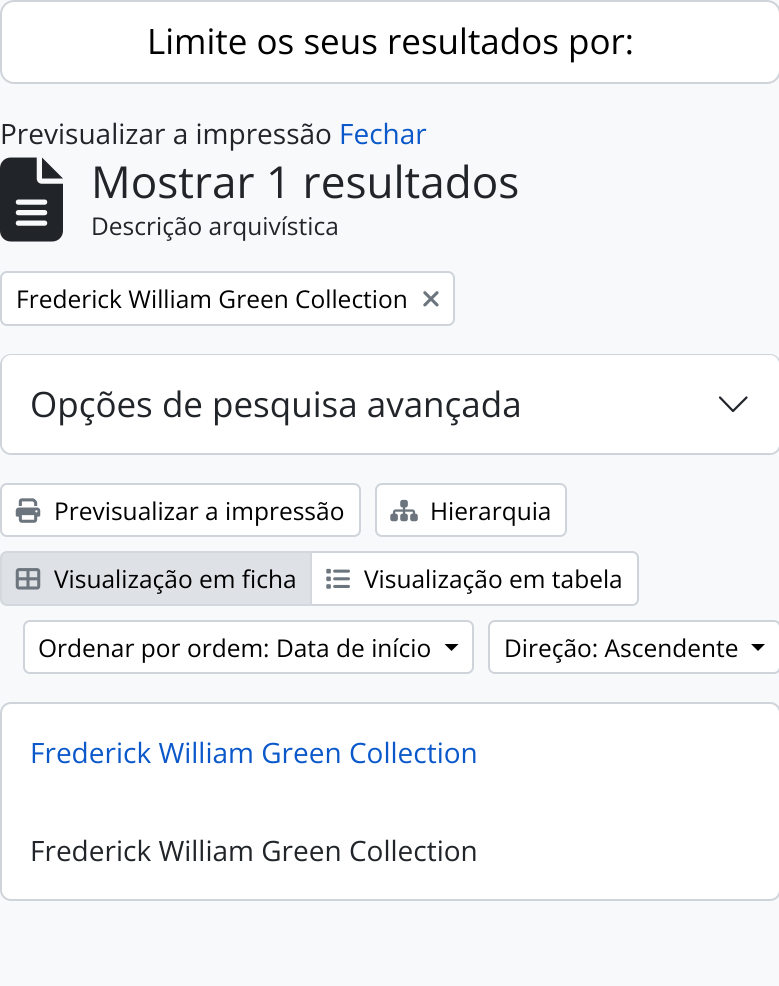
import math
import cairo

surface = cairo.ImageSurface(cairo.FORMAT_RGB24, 779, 986)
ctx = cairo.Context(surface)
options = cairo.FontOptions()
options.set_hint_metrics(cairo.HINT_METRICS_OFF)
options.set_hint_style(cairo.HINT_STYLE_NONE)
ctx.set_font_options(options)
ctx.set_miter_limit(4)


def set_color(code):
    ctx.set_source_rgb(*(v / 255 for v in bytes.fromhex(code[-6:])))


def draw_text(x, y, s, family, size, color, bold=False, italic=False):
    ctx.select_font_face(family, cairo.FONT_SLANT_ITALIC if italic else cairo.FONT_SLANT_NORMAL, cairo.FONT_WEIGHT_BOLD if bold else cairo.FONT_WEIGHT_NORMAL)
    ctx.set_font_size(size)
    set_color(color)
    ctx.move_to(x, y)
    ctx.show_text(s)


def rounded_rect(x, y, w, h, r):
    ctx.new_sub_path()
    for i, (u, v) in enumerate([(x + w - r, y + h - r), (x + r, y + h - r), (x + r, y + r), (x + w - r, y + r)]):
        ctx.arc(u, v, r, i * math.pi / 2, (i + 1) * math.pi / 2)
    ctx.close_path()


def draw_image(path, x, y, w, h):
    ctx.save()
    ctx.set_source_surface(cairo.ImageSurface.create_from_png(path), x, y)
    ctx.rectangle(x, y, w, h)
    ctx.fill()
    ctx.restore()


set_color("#f8f9fa")
ctx.paint()
set_color("#ffffff")
rounded_rect(1, 1, 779, 82, 13)
ctx.fill_preserve()
set_color("#ced4da")
ctx.stroke()
draw_text(147, 54, "Limite os seus resultados por:", "Open Sans", 35, "#000000")
draw_text(0, 144, "Previsualizar a impressão", "Open Sans", 28, "#212529")
draw_text(339, 144, "Fechar", "Open Sans", 28, "#0a58ca")
draw_image("assets/img1.png", 0, 157, 63, 85)
draw_text(91, 198, "Mostrar 1 resultados", "Open Sans", 44.1, "#212529")
draw_text(91, 235, "Descrição arquivística", "Open Sans", 24.5, "#212529")
set_color("#ffffff")
rounded_rect(1, 272, 453, 53, 6)
ctx.fill_preserve()
set_color("#ced4da")
ctx.stroke()
draw_text(16, 308, "Frederick William Green Collection", "Open Sans", 24.5, "#000000")
draw_image("assets/img2.png", 423, 291, 16, 16)
rounded_rect(1, 355, 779, 99, 10)
set_color("#ced4da")
ctx.stroke()
set_color("#ffffff")
rounded_rect(2, 355, 777, 98, 9)
ctx.fill()
draw_text(30, 417, "Opções de pesquisa avançada", "Open Sans", 35, "#212529")
ctx.new_path()
ctx.move_to(720, 397.5)
ctx.line_to(733, 411)
ctx.line_to(746.5, 397.5)
ctx.set_line_width(2.2)
ctx.set_line_cap(cairo.LINE_CAP_ROUND)
ctx.set_line_join(cairo.LINE_JOIN_ROUND)
ctx.stroke()
set_color("#ffffff")
rounded_rect(1, 484, 359, 52, 6)
ctx.fill_preserve()
set_color("#ced4da")
ctx.set_line_width(2)
ctx.set_line_cap(cairo.LINE_CAP_BUTT)
ctx.set_line_join(cairo.LINE_JOIN_MITER)
ctx.stroke()
draw_image("assets/img3.png", 15, 498, 26, 25)
draw_text(54, 520, "Previsualizar a impressão", "Open Sans", 24.5, "#000000")
set_color("#ffffff")
rounded_rect(376, 484, 190, 52, 6)
ctx.fill_preserve()
set_color("#ced4da")
ctx.stroke()
draw_image("assets/img4.png", 390, 499, 28, 23)
draw_text(430, 520, "Hierarquia", "Open Sans", 24.5, "#000000")
set_color("#ffffff")
ctx.new_path()
ctx.move_to(311, 552)
ctx.line_to(632, 552)
ctx.curve_to(635.5, 552, 638, 554.5, 638, 558)
ctx.line_to(638, 599)
ctx.curve_to(638, 602.5, 635.5, 605, 632, 605)
ctx.line_to(311, 605)
ctx.close_path()
ctx.fill_preserve()
set_color("#ced4da")
ctx.stroke()
set_color("#dee2e6")
ctx.new_path()
ctx.move_to(7, 552)
ctx.line_to(311, 552)
ctx.line_to(311, 605)
ctx.line_to(7, 605)
ctx.curve_to(3.5, 605, 1, 602.5, 1, 599)
ctx.line_to(1, 558)
ctx.curve_to(1, 554.5, 3.5, 552, 7, 552)
ctx.close_path()
ctx.fill_preserve()
set_color("#d3d8de")
ctx.stroke()
draw_image("assets/img5.png", 15, 568, 26, 22)
draw_text(54, 588, "Visualização em ficha", "Open Sans", 24.5, "#000000")
draw_image("assets/img6.png", 326, 568, 24, 21)
draw_text(364, 588, "Visualização em tabela", "Open Sans", 24.5, "#000000")
set_color("#ffffff")
rounded_rect(24, 621, 449, 52, 6)
ctx.fill_preserve()
set_color("#ced4da")
ctx.stroke()
draw_text(38, 657, "Ordenar por ordem: Data de início", "Open Sans", 24.5, "#000000")
ctx.new_path()
ctx.move_to(444.5, 644)
ctx.line_to(458.5, 644)
ctx.line_to(451.5, 651)
ctx.close_path()
ctx.fill()
set_color("#ffffff")
rounded_rect(489, 621, 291, 52, 6)
ctx.fill_preserve()
set_color("#ced4da")
ctx.stroke()
draw_text(504, 657, "Direção: Ascendente", "Open Sans", 24.5, "#000000")
ctx.new_path()
ctx.move_to(751, 644)
ctx.line_to(765, 644)
ctx.line_to(758, 651)
ctx.close_path()
ctx.fill()
set_color("#ffffff")
rounded_rect(1, 703, 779, 197, 10)
ctx.fill_preserve()
set_color("#ced4da")
ctx.stroke()
draw_text(30, 763, "Frederick William Green Collection", "Open Sans", 28, "#0a58ca")
draw_text(30, 861, "Frederick William Green Collection", "Open Sans", 28, "#212529")
surface.write_to_png("output.png")
